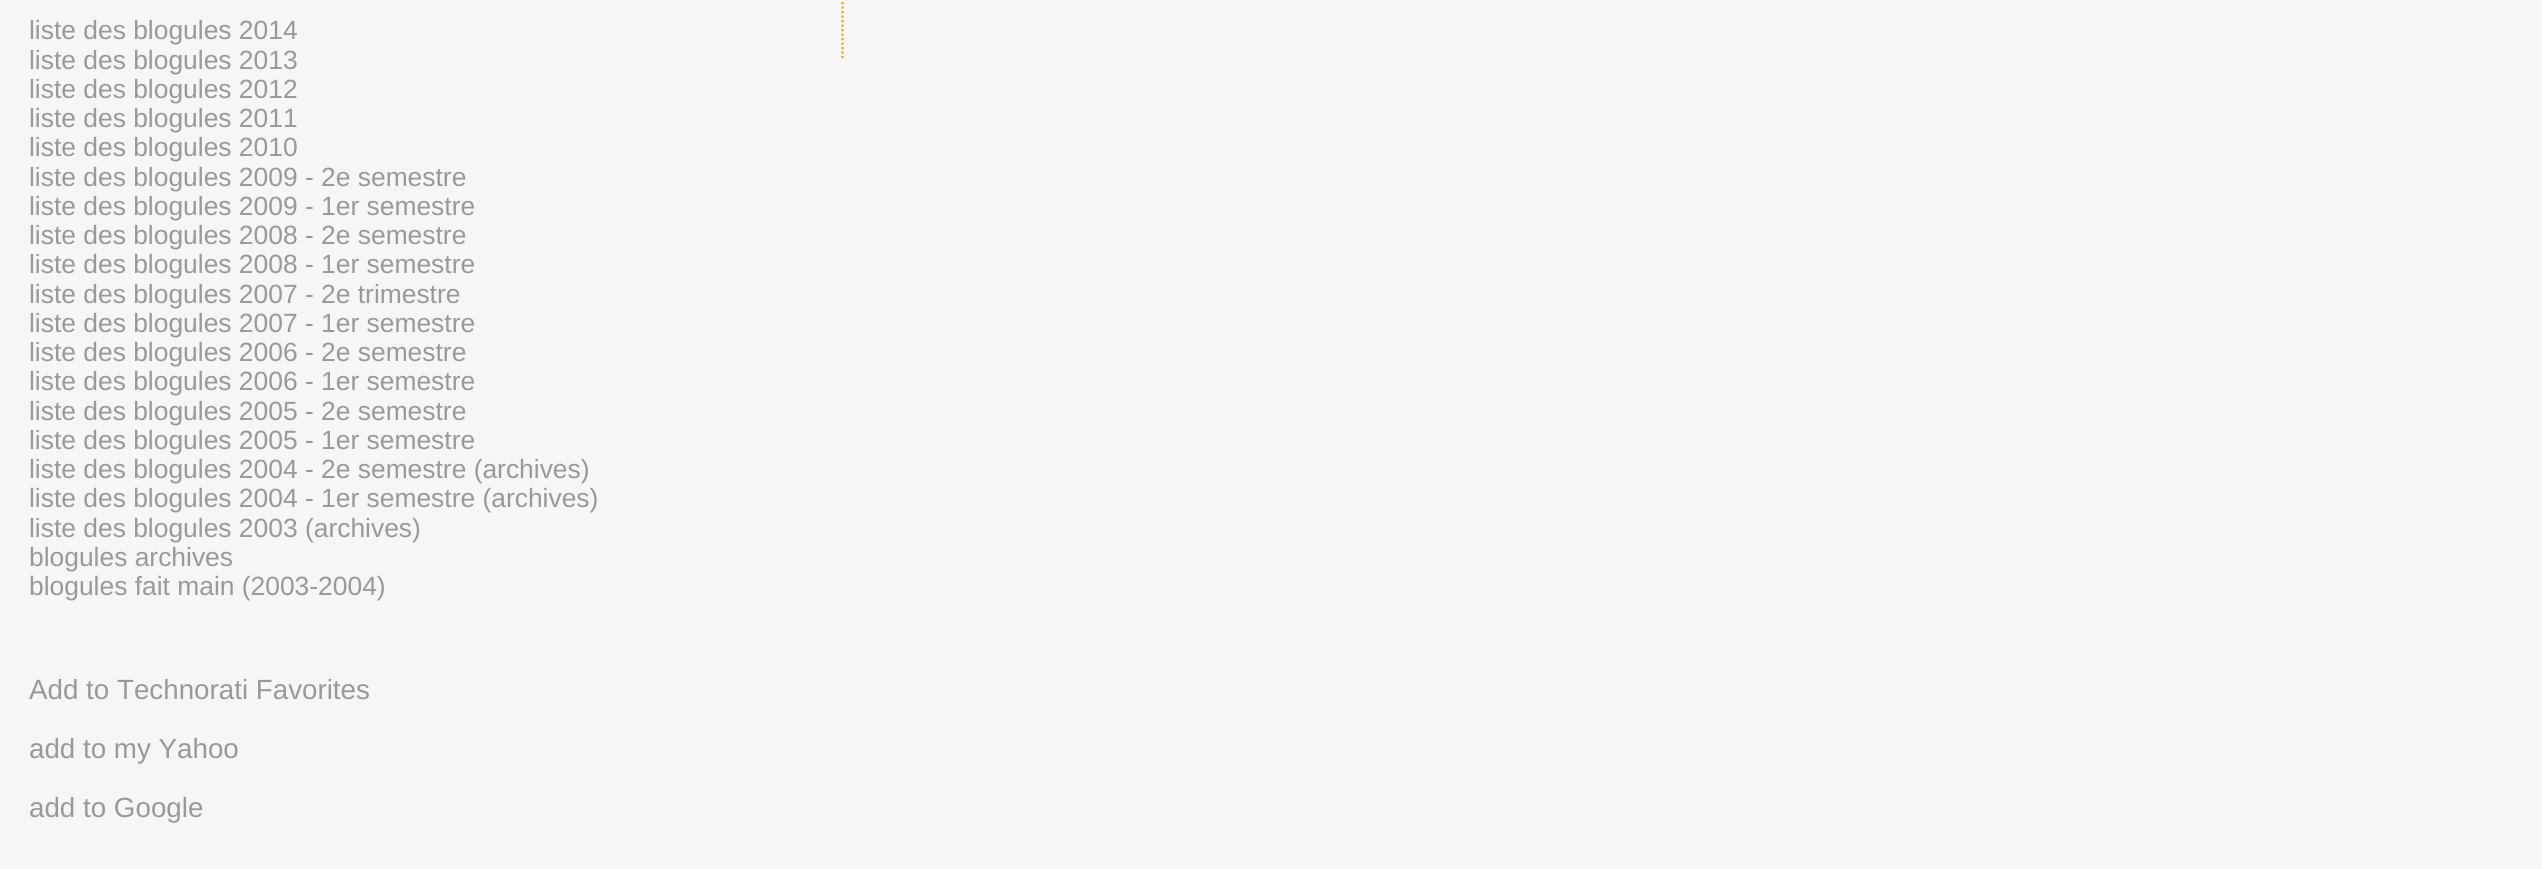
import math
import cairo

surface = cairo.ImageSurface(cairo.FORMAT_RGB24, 2542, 869)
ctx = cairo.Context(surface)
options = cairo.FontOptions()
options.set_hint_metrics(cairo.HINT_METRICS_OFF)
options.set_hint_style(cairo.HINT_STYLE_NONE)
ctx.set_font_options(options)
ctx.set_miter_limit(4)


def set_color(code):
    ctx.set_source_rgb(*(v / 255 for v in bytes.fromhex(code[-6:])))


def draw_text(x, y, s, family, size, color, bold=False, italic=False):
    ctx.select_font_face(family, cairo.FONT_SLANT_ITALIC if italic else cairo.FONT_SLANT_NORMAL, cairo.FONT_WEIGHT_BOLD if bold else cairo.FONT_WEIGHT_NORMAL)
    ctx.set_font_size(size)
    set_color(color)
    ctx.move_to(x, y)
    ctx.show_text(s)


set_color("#f6f6f6")
ctx.paint()
draw_text(29, 39, "liste des blogules 2014", "Liberation Sans", 26.4, "#999999")
draw_text(29, 69, "liste des blogules 2013", "Liberation Sans", 26.4, "#999999")
draw_text(29, 98, "liste des blogules 2012", "Liberation Sans", 26.4, "#999999")
draw_text(29, 127, "liste des blogules 2011", "Liberation Sans", 26.4, "#999999")
draw_text(29, 156, "liste des blogules 2010", "Liberation Sans", 26.4, "#999999")
draw_text(29, 186, "liste des blogules 2009 - 2e semestre", "Liberation Sans", 26.4, "#999999")
draw_text(29, 215, "liste des blogules 2009 - 1er semestre", "Liberation Sans", 26.4, "#999999")
draw_text(29, 244, "liste des blogules 2008 - 2e semestre", "Liberation Sans", 26.4, "#999999")
draw_text(29, 273, "liste des blogules 2008 - 1er semestre", "Liberation Sans", 26.4, "#999999")
draw_text(29, 303, "liste des blogules 2007 - 2e trimestre", "Liberation Sans", 26.4, "#999999")
draw_text(29, 332, "liste des blogules 2007 - 1er semestre", "Liberation Sans", 26.4, "#999999")
draw_text(29, 361, "liste des blogules 2006 - 2e semestre", "Liberation Sans", 26.4, "#999999")
draw_text(29, 390, "liste des blogules 2006 - 1er semestre", "Liberation Sans", 26.4, "#999999")
draw_text(29, 420, "liste des blogules 2005 - 2e semestre", "Liberation Sans", 26.4, "#999999")
draw_text(29, 449, "liste des blogules 2005 - 1er semestre", "Liberation Sans", 26.4, "#999999")
draw_text(29, 478, "liste des blogules 2004 - 2e semestre (archives)", "Liberation Sans", 26.4, "#999999")
draw_text(29, 507, "liste des blogules 2004 - 1er semestre (archives)", "Liberation Sans", 26.4, "#999999")
draw_text(29, 537, "liste des blogules 2003 (archives)", "Liberation Sans", 26.4, "#999999")
draw_text(29, 566, "blogules archives", "Liberation Sans", 26.4, "#999999")
draw_text(29, 595, "blogules fait main (2003-2004)", "Liberation Sans", 26.4, "#999999")
draw_text(29, 699, "Add to Technorati Favorites", "Liberation Sans", 27.75, "#999999")
draw_text(29, 758, "add to my Yahoo", "Liberation Sans", 27.75, "#999999")
draw_text(29, 817, "add to Google", "Liberation Sans", 27.75, "#999999")
ctx.new_path()
ctx.move_to(842.5, -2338)
ctx.line_to(842.5, 58.5)
set_color("#e0ad12")
ctx.set_line_width(2.2)
ctx.set_dash([2.25, 2.25])
ctx.stroke()
surface.write_to_png("output.png")
